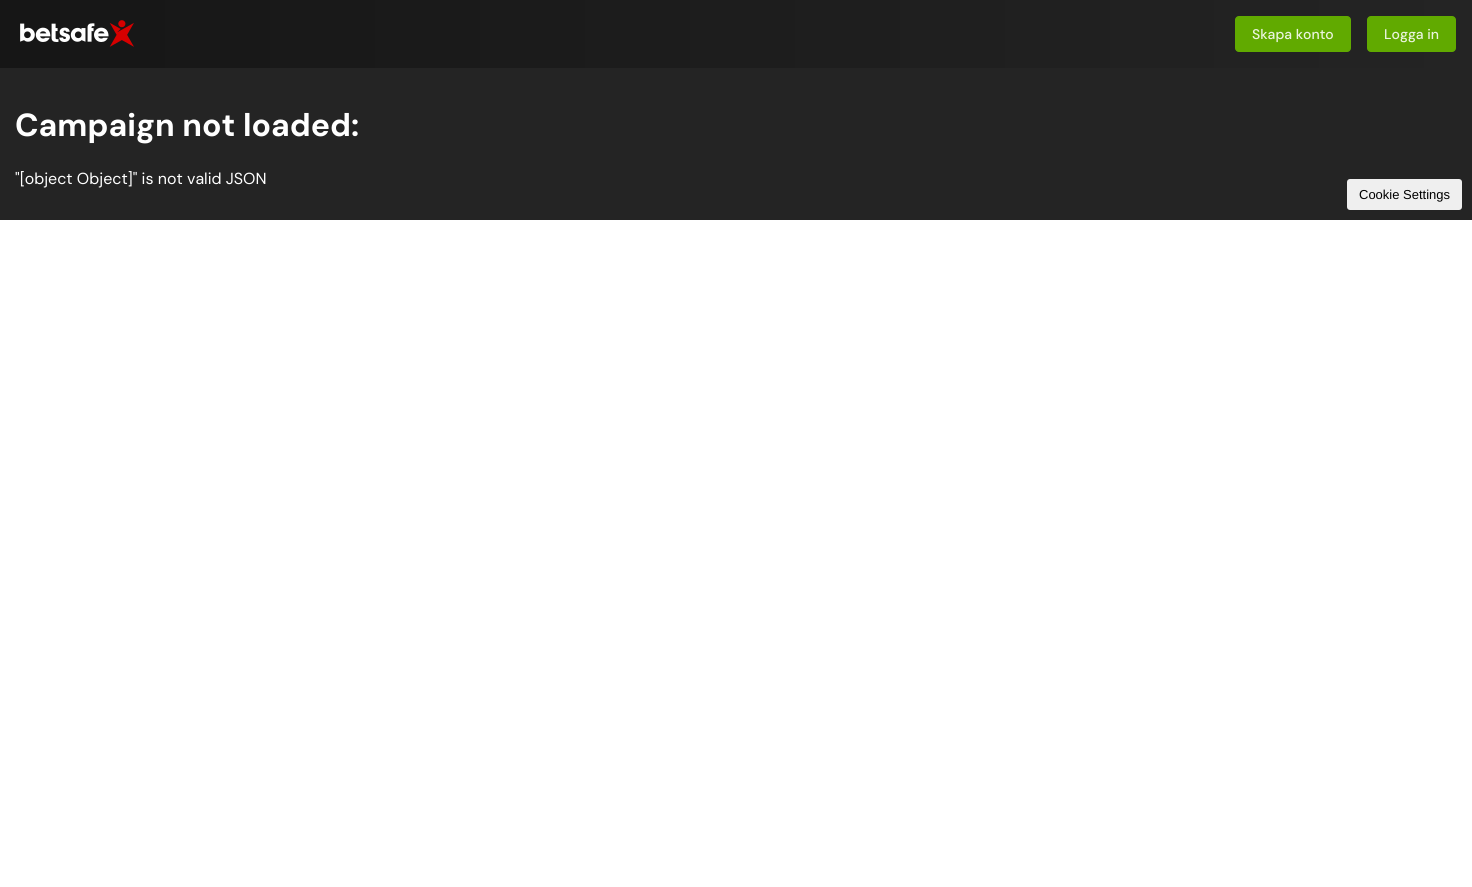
import math
import cairo

surface = cairo.ImageSurface(cairo.FORMAT_RGB24, 1472, 887)
ctx = cairo.Context(surface)
options = cairo.FontOptions()
options.set_hint_metrics(cairo.HINT_METRICS_OFF)
options.set_hint_style(cairo.HINT_STYLE_NONE)
ctx.set_font_options(options)
ctx.set_miter_limit(4)


def set_color(code):
    ctx.set_source_rgb(*(v / 255 for v in bytes.fromhex(code[-6:])))


def draw_text(x, y, s, family, size, color, bold=False, italic=False):
    ctx.select_font_face(family, cairo.FONT_SLANT_ITALIC if italic else cairo.FONT_SLANT_NORMAL, cairo.FONT_WEIGHT_BOLD if bold else cairo.FONT_WEIGHT_NORMAL)
    ctx.set_font_size(size)
    set_color(color)
    ctx.move_to(x, y)
    ctx.show_text(s)


def fill_rect(x, y, w, h, color):
    set_color(color)
    ctx.rectangle(x, y, w, h)
    ctx.fill()


def rounded_rect(x, y, w, h, r):
    ctx.new_sub_path()
    for i, (u, v) in enumerate([(x + w - r, y + h - r), (x + r, y + h - r), (x + r, y + r), (x + w - r, y + r)]):
        ctx.arc(u, v, r, i * math.pi / 2, (i + 1) * math.pi / 2)
    ctx.close_path()


def draw_image(path, x, y, w, h):
    ctx.save()
    ctx.set_source_surface(cairo.ImageSurface.create_from_png(path), x, y)
    ctx.rectangle(x, y, w, h)
    ctx.fill()
    ctx.restore()


set_color("#ffffff")
ctx.paint()
gradient = cairo.LinearGradient(0, 34, 1472, 34)
gradient.add_color_stop_rgba(0, 0.086, 0.086, 0.086, 1)
gradient.add_color_stop_rgba(1, 0.141, 0.141, 0.141, 1)
ctx.set_source(gradient)
ctx.rectangle(0, 0, 1472, 68)
ctx.fill()
draw_image("assets/img1.png", 20, 20, 114, 27)
set_color("#61aa00")
rounded_rect(1235.5, 16.5, 115, 35, 3.5)
ctx.fill_preserve()
ctx.set_line_width(1)
ctx.stroke()
draw_text(1252, 39, "Skapa konto", "DM Sans Medium", 14, "#eaf4de")
set_color("#61aa00")
rounded_rect(1367.5, 16.5, 88, 35, 3.5)
ctx.fill_preserve()
ctx.stroke()
draw_text(1384, 39, "Logga in", "DM Sans Medium", 14, "#eaf4de")
fill_rect(0, 68, 1472, 152, "#242424")
draw_text(15, 136, "Campaign not loaded:", "DM Sans", 32, "#ffffff", bold=True)
draw_text(15, 184, "\"[object Object]\" is not valid JSON", "DM Sans", 16, "#ffffff")
set_color("#efefef")
rounded_rect(1347, 179, 115, 31, 3)
ctx.fill()
draw_text(1359, 199, "Cookie Settings", "Liberation Sans", 13, "#000000")
surface.write_to_png("output.png")
